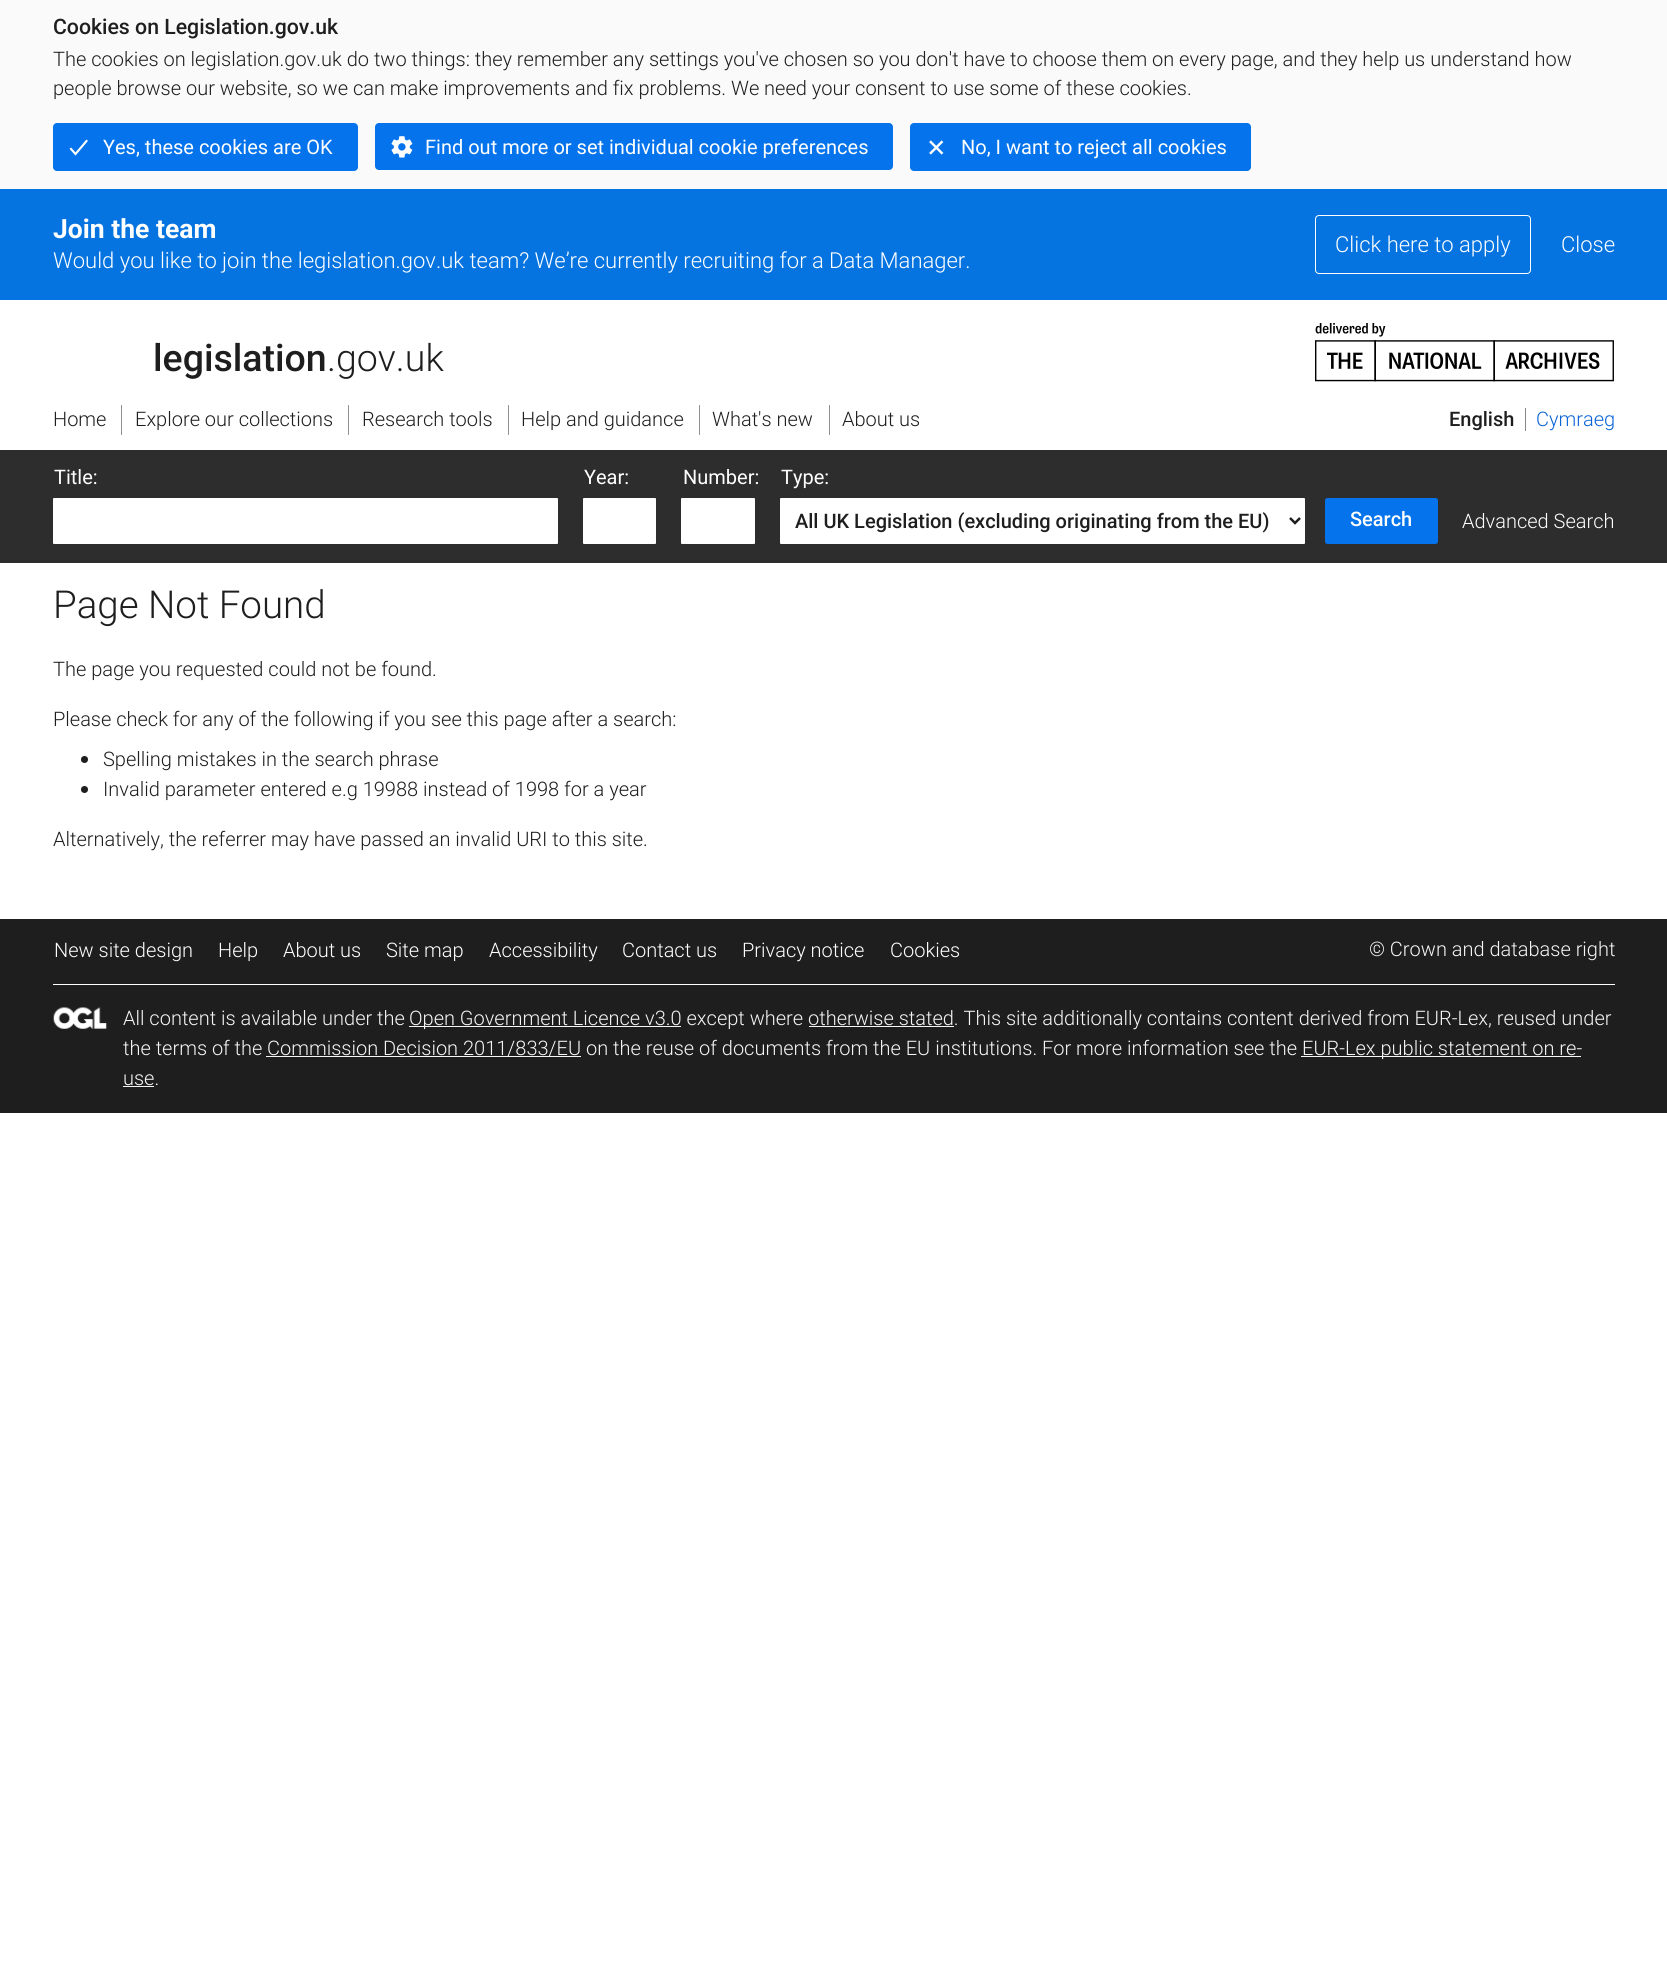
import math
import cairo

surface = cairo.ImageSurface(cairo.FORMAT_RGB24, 1667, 1985)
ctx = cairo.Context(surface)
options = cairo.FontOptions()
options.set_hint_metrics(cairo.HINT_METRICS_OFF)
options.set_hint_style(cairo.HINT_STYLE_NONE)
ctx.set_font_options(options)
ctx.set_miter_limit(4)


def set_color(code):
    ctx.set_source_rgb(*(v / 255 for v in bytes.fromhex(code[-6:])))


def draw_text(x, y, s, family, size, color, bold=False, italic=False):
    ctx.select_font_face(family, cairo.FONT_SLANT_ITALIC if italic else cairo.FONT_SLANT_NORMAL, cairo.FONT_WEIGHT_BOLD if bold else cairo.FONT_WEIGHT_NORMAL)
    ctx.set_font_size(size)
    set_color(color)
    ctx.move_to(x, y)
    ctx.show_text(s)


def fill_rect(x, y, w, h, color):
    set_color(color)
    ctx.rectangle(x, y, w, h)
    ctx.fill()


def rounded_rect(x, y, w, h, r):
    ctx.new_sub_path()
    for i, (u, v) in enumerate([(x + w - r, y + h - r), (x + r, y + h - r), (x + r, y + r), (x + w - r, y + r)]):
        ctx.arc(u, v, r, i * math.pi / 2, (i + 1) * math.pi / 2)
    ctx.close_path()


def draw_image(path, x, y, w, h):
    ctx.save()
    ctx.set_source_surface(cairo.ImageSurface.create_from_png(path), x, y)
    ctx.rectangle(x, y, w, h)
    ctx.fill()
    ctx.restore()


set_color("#ffffff")
ctx.paint()
fill_rect(0, 0, 1667, 189, "#fafafa")
draw_text(53, 34, "Cookies on Legislation.gov.uk", "Roboto Medium", 21.25, "#1e1e1e")
draw_text(53, 66, "The cookies on legislation.gov.uk do two things: they remember any settings you've chosen so you don't have to choose them on every page, and they help us understand how", "Roboto Light", 20, "#1e1e1e")
draw_text(53, 95, "people browse our website, so we can make improvements and fix problems. We need your consent to use some of these cookies.", "Roboto Light", 20, "#1e1e1e")
set_color("#0573eb")
rounded_rect(53, 123, 305, 48, 4)
ctx.fill()
ctx.new_path()
ctx.move_to(86.5, 141)
ctx.line_to(75.5, 154)
ctx.line_to(71, 149)
set_color("#ffffff")
ctx.set_line_width(2.1)
ctx.set_line_cap(cairo.LINE_CAP_SQUARE)
ctx.stroke()
draw_text(103, 154, "Yes, these cookies are OK", "Roboto", 20, "#ffffff")
set_color("#0573eb")
rounded_rect(375, 123, 518, 47, 4)
ctx.fill()
draw_image("assets/img1.png", 391, 136, 22, 22)
draw_text(425, 154, "Find out more or set individual cookie preferences", "Roboto", 20, "#ffffff")
set_color("#0573eb")
rounded_rect(910, 123, 341, 48, 4)
ctx.fill()
draw_image("assets/img2.png", 929, 140, 15, 15)
draw_text(961, 154, "No, I want to reject all cookies", "Roboto", 20, "#ffffff")
fill_rect(0, 189, 1667, 111, "#0574e0")
draw_text(53, 238, "Join the team", "Roboto", 26.5, "#ffffff", bold=True)
draw_text(53, 268, "Would you like to join the legislation.gov.uk team? We’re currently recruiting for a Data Manager.", "Roboto Light", 22, "#ffffff")
rounded_rect(1315.5, 215.5, 215, 58, 3.5)
ctx.set_line_width(1)
ctx.set_line_cap(cairo.LINE_CAP_BUTT)
ctx.stroke()
draw_text(1335, 252, "Click here to apply", "Roboto Light", 22, "#ffffff")
draw_text(1561, 252, "Close", "Roboto Light", 22, "#ffffff")
draw_text(153, 371, "legislation", "Roboto Medium", 37.5, "#1e1e1e")
draw_text(327, 371, ".gov.uk", "Roboto Light", 37.5, "#1e1e1e")
draw_image("assets/img3.png", 1315, 323, 299, 59)
draw_text(1449, 426, "English", "Roboto Medium", 20, "#1e1e1e")
fill_rect(1525, 408, 1, 23, "#878787")
draw_text(1536, 426, "Cymraeg", "Roboto Light", 20, "#0a64d7")
fill_rect(0, 450, 1667, 113, "#2d2d2d")
draw_text(53, 426, "Home", "Roboto Light", 20, "#1e1e1e")
fill_rect(121, 405, 1, 30, "#919191")
draw_text(135, 426, "Explore our collections", "Roboto Light", 20, "#1e1e1e")
fill_rect(348, 405, 1, 30, "#919191")
draw_text(362, 426, "Research tools", "Roboto Light", 20, "#1e1e1e")
fill_rect(508, 405, 1, 30, "#919191")
draw_text(521, 426, "Help and guidance", "Roboto Light", 20, "#1e1e1e")
fill_rect(699, 405, 1, 30, "#919191")
draw_text(712, 426, "What's new", "Roboto Light", 20, "#1e1e1e")
fill_rect(829, 405, 1, 30, "#919191")
draw_text(842, 426, "About us", "Roboto Light", 20, "#1e1e1e")
draw_text(54, 484, "Title:", "Roboto", 20, "#ffffff")
rounded_rect(53, 498, 505, 46, 1)
ctx.fill()
draw_text(584, 484, "Year:", "Roboto", 20, "#ffffff")
rounded_rect(583, 498, 73, 46, 1)
ctx.fill()
draw_text(683, 484, "Number:", "Roboto", 20, "#ffffff")
rounded_rect(681, 498, 74, 46, 1)
ctx.fill()
draw_text(781, 484, "Type:", "Roboto", 20, "#ffffff")
rounded_rect(780, 498, 525, 46, 1)
ctx.fill()
ctx.new_path()
ctx.move_to(1290, 518)
ctx.line_to(1295, 523)
ctx.line_to(1300, 518)
set_color("#1e1e1e")
ctx.set_line_width(2.5)
ctx.stroke()
draw_text(795, 528, "All UK Legislation (excluding originating from the EU)", "Roboto Medium", 20, "#1e1e1e")
set_color("#0573eb")
rounded_rect(1325, 498, 113, 46, 2.5)
ctx.fill()
draw_text(1350, 526, "Search", "Roboto Medium", 20, "#ffffff")
draw_text(1462, 528, "Advanced Search", "Roboto Light", 20, "#ffffff")
draw_text(53, 618, "Page Not Found", "Roboto Light", 38.5, "#1e1e1e")
draw_text(53, 676, "The page you requested could not be found.", "Roboto Light", 20, "#1e1e1e")
draw_text(53, 726, "Please check for any of the following if you see this page after a search:", "Roboto Light", 20, "#1e1e1e")
ctx.new_path()
ctx.arc(84.5, 759.5, 3.5, 0, 2 * math.pi)
ctx.fill()
draw_text(103, 766, "Spelling mistakes in the search phrase", "Roboto Light", 20, "#1e1e1e")
ctx.new_path()
ctx.arc(84.5, 789.5, 3.5, 0, 2 * math.pi)
ctx.fill()
draw_text(103, 796, "Invalid parameter entered e.g 19988 instead of 1998 for a year", "Roboto Light", 20, "#1e1e1e")
draw_text(53, 846, "Alternatively, the referrer may have passed an invalid URI to this site.", "Roboto Light", 20, "#1e1e1e")
fill_rect(0, 919, 1667, 194, "#1e1e1e")
fill_rect(53, 984, 1562, 1, "#ffffff")
draw_text(1369, 956, "© Crown and database right", "Roboto Light", 20, "#f5f5f5")
draw_image("assets/img4.png", 53, 1007, 54, 22)
draw_text(123, 1025, "All content is available under the", "Roboto Light", 20, "#f5f5f5")
fill_rect(409, 1026, 272, 1, "#f5f5f5")
draw_text(409, 1025, "Open Government Licence v3.0 except where otherwise stated. This site additionally contains content derived from EUR-Lex, reused under", "Roboto Light", 20, "#f5f5f5")
fill_rect(809, 1026, 145, 1, "#f5f5f5")
draw_text(123, 1055, "the terms of the", "Roboto Light", 20, "#f5f5f5")
fill_rect(266, 1056, 315, 1, "#f5f5f5")
draw_text(267, 1055, "Commission Decision 2011/833/EU on the reuse of documents from the EU institutions. For more information see the", "Roboto Light", 20, "#f5f5f5")
fill_rect(1301, 1056, 280, 1, "#f5f5f5")
draw_text(1302, 1055, "EUR-Lex public statement on re-", "Roboto Light", 20, "#f5f5f5")
draw_text(123, 1085, "use.", "Roboto Light", 20, "#f5f5f5")
fill_rect(123, 1086, 31, 1, "#f5f5f5")
draw_text(54, 957, "New site design", "Roboto Light", 20, "#ffffff")
draw_text(218, 957, "Help", "Roboto Light", 20, "#ffffff")
draw_text(283, 957, "About us", "Roboto Light", 20, "#ffffff")
draw_text(386, 957, "Site map", "Roboto Light", 20, "#ffffff")
draw_text(489, 957, "Accessibility", "Roboto Light", 20, "#ffffff")
draw_text(622, 957, "Contact us", "Roboto Light", 20, "#ffffff")
draw_text(742, 957, "Privacy notice", "Roboto Light", 20, "#ffffff")
draw_text(890, 957, "Cookies", "Roboto Light", 20, "#ffffff")
surface.write_to_png("output.png")
